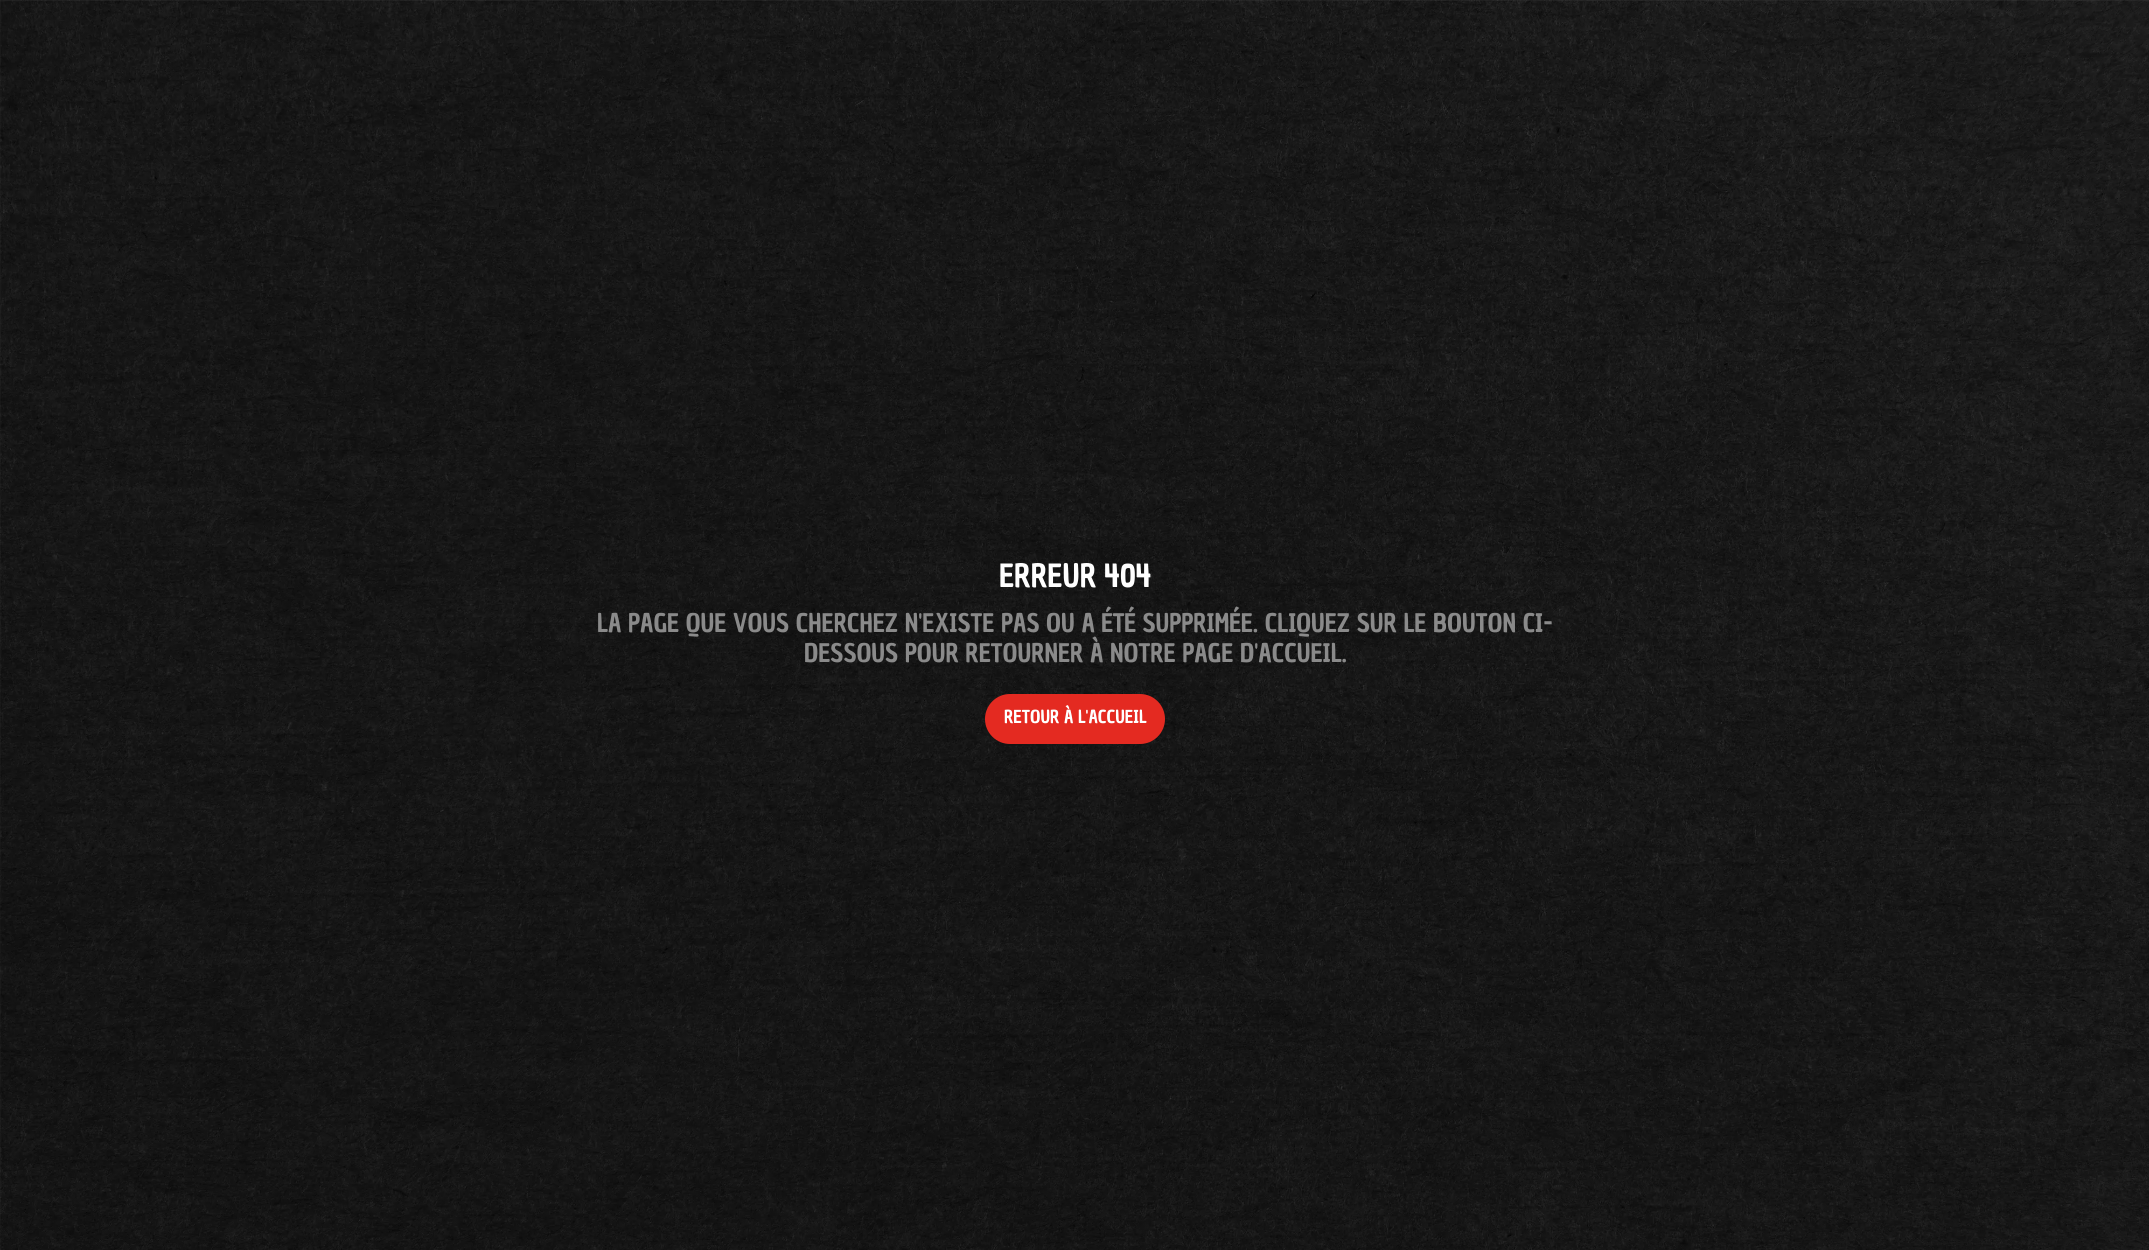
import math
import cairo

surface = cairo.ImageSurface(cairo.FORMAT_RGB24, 2149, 1250)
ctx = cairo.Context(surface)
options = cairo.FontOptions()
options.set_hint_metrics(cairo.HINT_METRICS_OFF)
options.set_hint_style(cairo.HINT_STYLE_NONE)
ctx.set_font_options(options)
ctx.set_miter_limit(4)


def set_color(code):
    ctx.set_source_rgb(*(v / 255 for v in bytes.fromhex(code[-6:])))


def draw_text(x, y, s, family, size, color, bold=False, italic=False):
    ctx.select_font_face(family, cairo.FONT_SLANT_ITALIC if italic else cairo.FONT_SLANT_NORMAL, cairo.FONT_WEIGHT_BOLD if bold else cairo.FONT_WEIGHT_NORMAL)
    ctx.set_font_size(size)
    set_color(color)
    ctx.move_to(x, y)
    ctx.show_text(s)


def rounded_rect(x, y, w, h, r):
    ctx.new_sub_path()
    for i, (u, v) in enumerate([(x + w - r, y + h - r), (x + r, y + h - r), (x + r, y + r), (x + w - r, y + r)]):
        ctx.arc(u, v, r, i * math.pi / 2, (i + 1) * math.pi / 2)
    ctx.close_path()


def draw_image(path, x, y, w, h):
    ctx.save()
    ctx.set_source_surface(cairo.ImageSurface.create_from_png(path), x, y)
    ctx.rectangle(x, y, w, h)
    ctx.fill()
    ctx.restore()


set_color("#ffffff")
ctx.paint()
draw_image("assets/img1.png", 0, 0, 2149, 1250)
draw_text(999, 587, "ERREUR 404", "Chau Philomene One", 31.25, "#ffffff")
draw_text(597, 632, "LA PAGE QUE VOUS CHERCHEZ N'EXISTE PAS OU A ÉTÉ SUPPRIMÉE. CLIQUEZ SUR LE BOUTON CI-", "Chau Philomene One", 25, "#8a8a8a")
draw_text(804, 662, "DESSOUS POUR RETOURNER À NOTRE PAGE D'ACCUEIL.", "Chau Philomene One", 25, "#8a8a8a")
set_color("#e42a21")
rounded_rect(985, 694, 180, 50, 25)
ctx.fill()
draw_text(1004, 723, "RETOUR À L'ACCUEIL", "Chau Philomene One", 17.5, "#ffffff")
surface.write_to_png("output.png")
